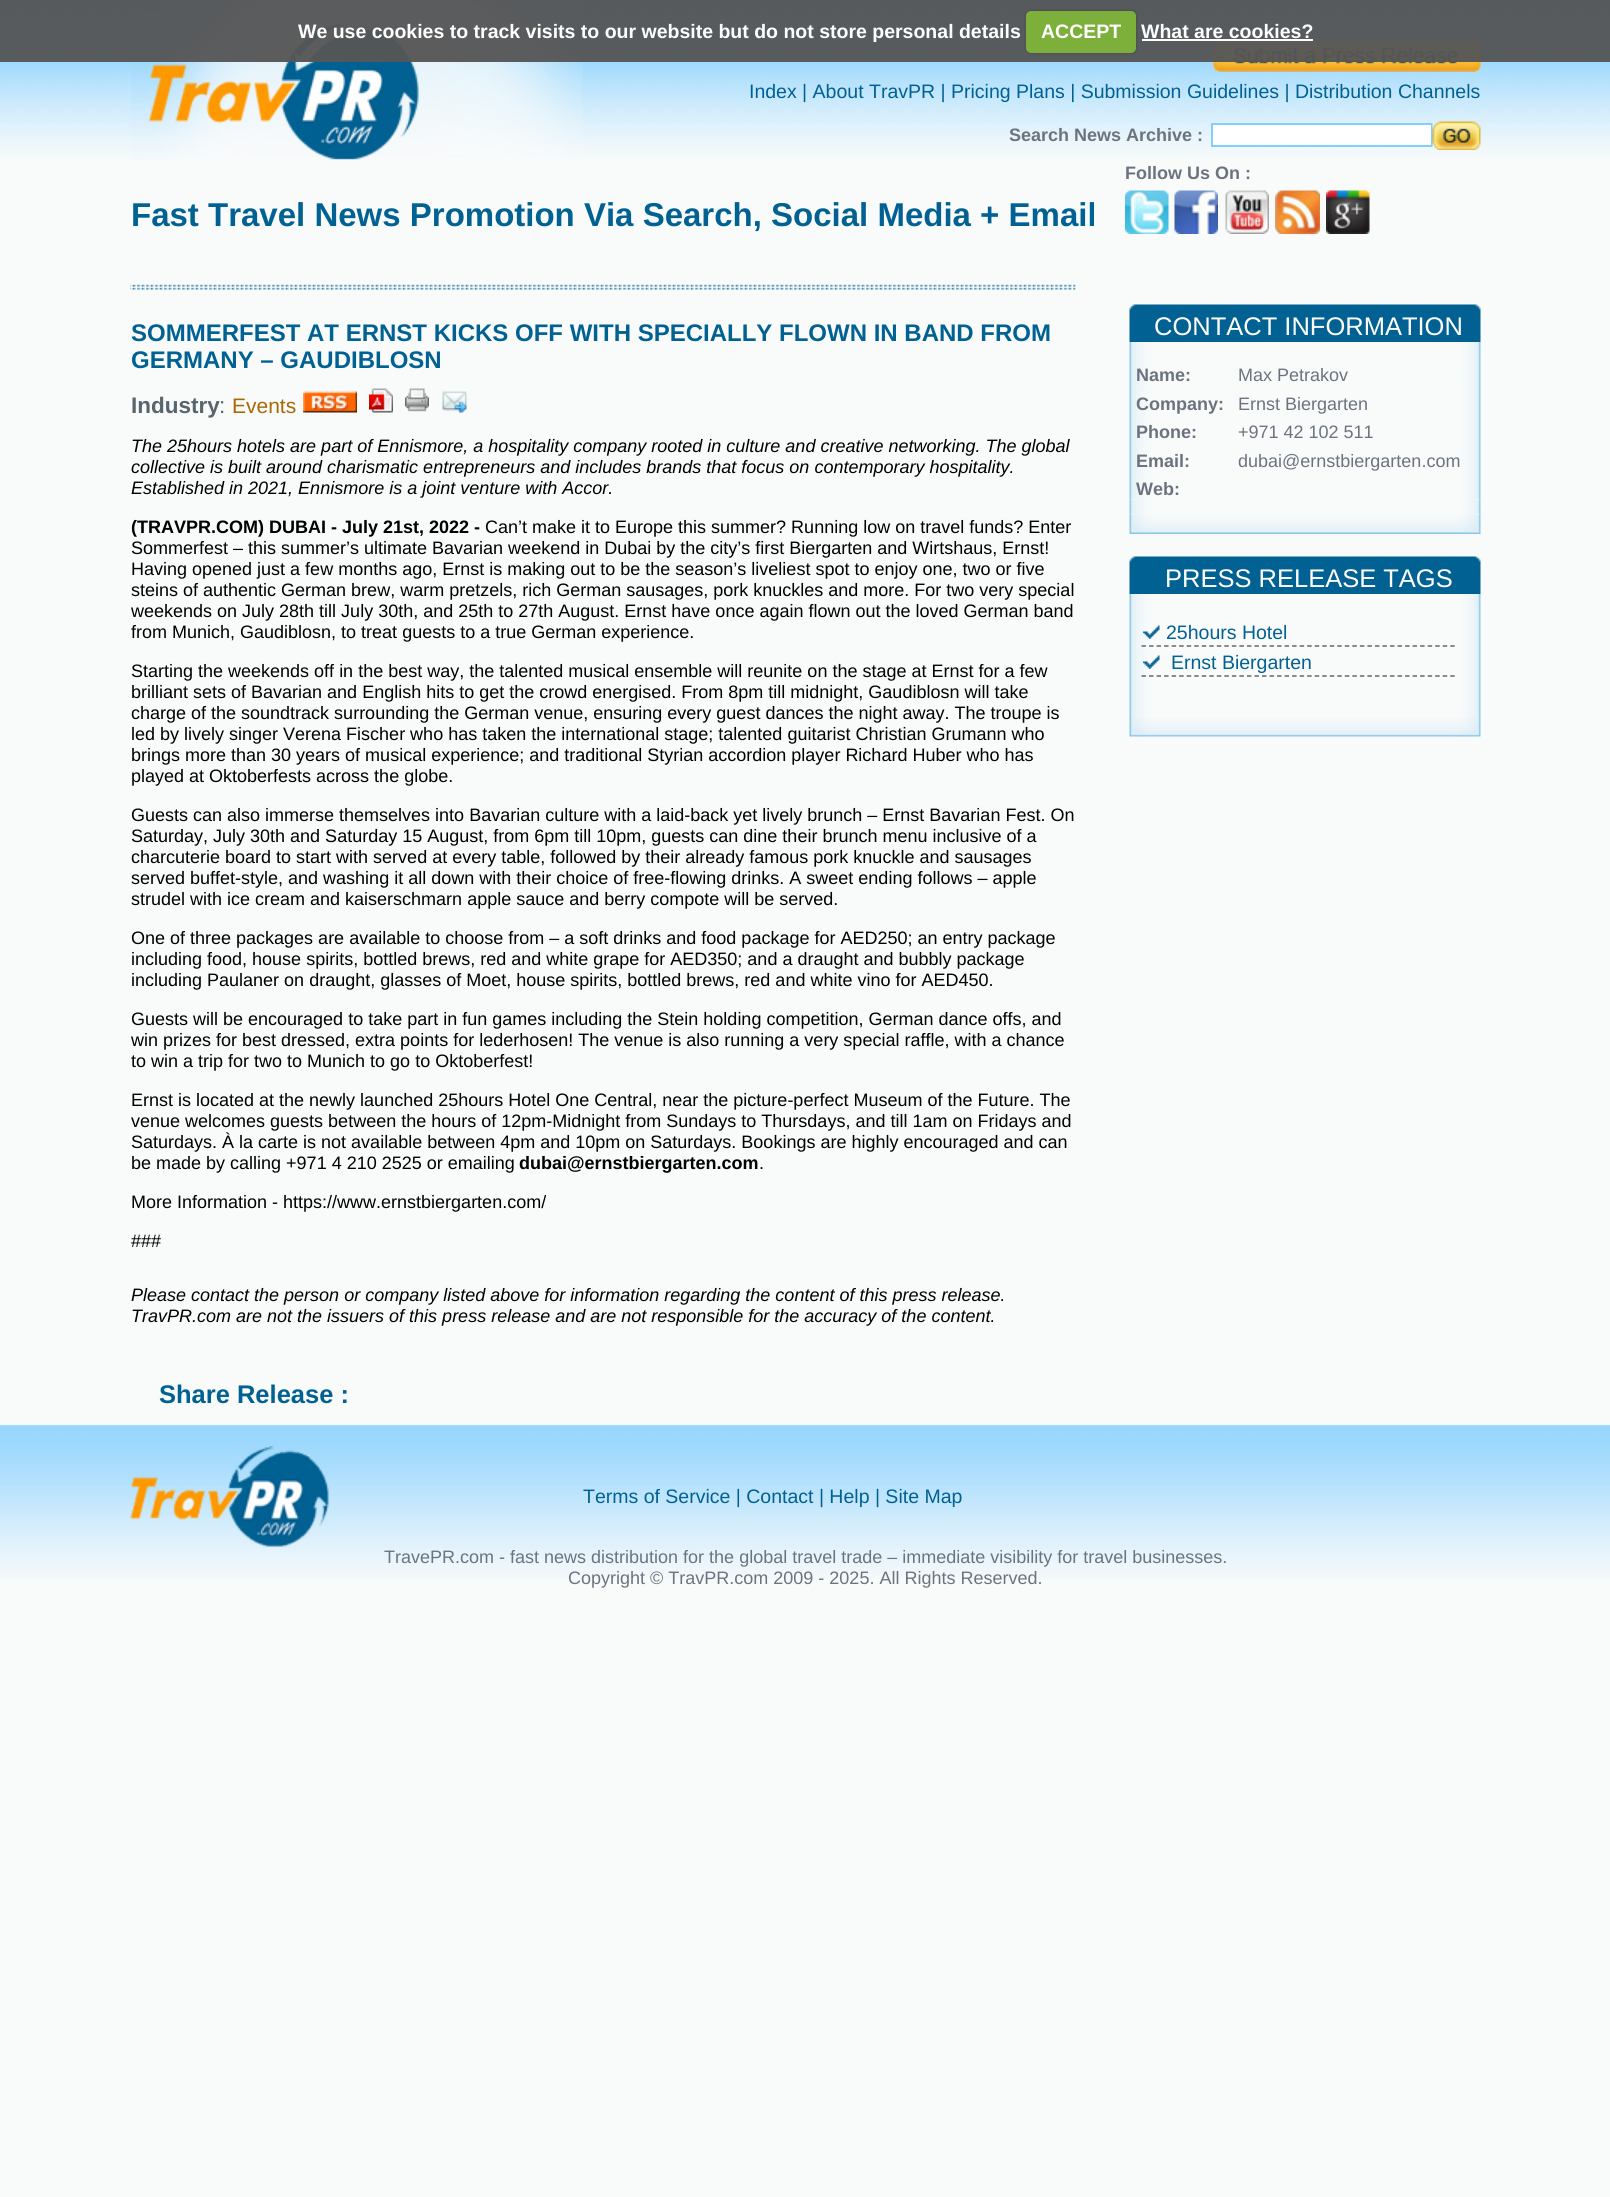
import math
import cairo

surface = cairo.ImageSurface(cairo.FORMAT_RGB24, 1610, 2197)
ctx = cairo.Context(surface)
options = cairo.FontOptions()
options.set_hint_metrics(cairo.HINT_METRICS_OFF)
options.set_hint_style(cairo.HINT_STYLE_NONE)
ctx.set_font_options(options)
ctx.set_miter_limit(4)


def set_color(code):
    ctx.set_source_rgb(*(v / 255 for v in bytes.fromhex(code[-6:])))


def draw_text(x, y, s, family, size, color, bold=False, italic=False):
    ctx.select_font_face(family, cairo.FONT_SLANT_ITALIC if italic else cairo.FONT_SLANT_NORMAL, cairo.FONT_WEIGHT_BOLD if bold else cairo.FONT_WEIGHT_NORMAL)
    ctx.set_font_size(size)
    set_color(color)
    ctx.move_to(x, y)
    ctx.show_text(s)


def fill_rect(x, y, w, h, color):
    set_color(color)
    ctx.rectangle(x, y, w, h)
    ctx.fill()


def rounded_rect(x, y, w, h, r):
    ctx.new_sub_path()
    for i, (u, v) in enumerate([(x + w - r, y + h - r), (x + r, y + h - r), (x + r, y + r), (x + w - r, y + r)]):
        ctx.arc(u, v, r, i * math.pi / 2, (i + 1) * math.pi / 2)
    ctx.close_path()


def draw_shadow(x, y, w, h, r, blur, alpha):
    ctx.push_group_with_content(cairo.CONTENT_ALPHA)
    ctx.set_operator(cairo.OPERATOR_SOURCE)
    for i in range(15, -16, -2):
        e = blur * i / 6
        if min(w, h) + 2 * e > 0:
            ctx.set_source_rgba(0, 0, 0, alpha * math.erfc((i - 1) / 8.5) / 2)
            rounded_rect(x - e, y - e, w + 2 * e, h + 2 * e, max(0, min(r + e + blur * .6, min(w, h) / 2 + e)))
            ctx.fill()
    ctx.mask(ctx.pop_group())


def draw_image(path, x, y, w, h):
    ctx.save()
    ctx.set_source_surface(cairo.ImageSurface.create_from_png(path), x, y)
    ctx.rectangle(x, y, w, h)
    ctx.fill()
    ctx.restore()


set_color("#f9fbfb")
ctx.paint()
draw_image("assets/img1.png", 0, 0, 1610, 157)
draw_image("assets/img2.png", 131, 0, 452, 160)
draw_image("assets/img3.png", 1213, 40, 268, 32)
ctx.set_source_rgba(0.337, 0.337, 0.337, 0.95)
ctx.rectangle(0, 0, 1610, 62)
ctx.fill()
draw_text(298, 38, "We use cookies to track visits to our website but do not store personal details", "Liberation Sans", 19.5, "#ffffff", bold=True)
set_color("#000000")
draw_shadow(1026, 11, 110, 42, 5, 1.5, 0.25)
set_color("#7daf3b")
rounded_rect(1026, 11, 110, 42, 5)
ctx.fill()
draw_text(1041, 38, "ACCEPT", "Liberation Sans", 19.5, "#ffffff", bold=True)
draw_text(1141, 38, "What are cookies?", "Liberation Sans", 19.5, "#ffffff", bold=True)
fill_rect(1142, 39, 171, 2, "#ffffff")
draw_text(749, 98, "Index | About TravPR | Pricing Plans | Submission Guidelines | Distribution Channels", "Liberation Sans", 19.5, "#006192")
draw_text(1009, 141, "Search News Archive :", "Liberation Sans", 18, "#6c737f", bold=True)
set_color("#ffffff")
ctx.rectangle(1212, 124, 220, 22)
ctx.fill_preserve()
set_color("#83cefd")
ctx.stroke()
draw_image("assets/img4.png", 1432, 121, 49, 29)
draw_text(1125, 179, "Follow Us On :", "Liberation Sans", 18, "#6c737f", bold=True)
draw_image("assets/img5.png", 1125, 190, 44, 44)
draw_image("assets/img6.png", 1174, 190, 44, 44)
draw_image("assets/img7.png", 1225, 190, 44, 44)
draw_image("assets/img8.png", 1275, 190, 45, 44)
draw_image("assets/img9.png", 1326, 190, 44, 44)
draw_text(131, 226, "Fast Travel News Promotion Via Search, Social Media + Email", "Liberation Sans", 33, "#006192", bold=True)
draw_image("assets/img10.png", 130, 284, 946, 6)
draw_text(131, 341, "SOMMERFEST AT ERNST KICKS OFF WITH SPECIALLY FLOWN IN BAND FROM", "Liberation Sans", 24, "#006192", bold=True)
draw_text(131, 368, "GERMANY – GAUDIBLOSN", "Liberation Sans", 24, "#006192", bold=True)
draw_text(131, 413, "Industry", "Liberation Sans", 22.5, "#57656c", bold=True)
draw_text(219, 413, ":", "Liberation Sans", 22.5, "#57656c")
draw_text(232, 413, "Events", "Liberation Sans", 21, "#aa6805")
draw_image("assets/img11.png", 303, 391, 54, 22)
draw_image("assets/img12.png", 369, 388, 24, 25)
draw_image("assets/img13.png", 405, 388, 24, 24)
draw_image("assets/img14.png", 442, 391, 25, 22)
draw_text(131, 452, "The 25hours hotels are part of Ennismore, a hospitality company rooted in culture and creative networking. The global", "Liberation Sans", 18, "#000000", italic=True)
draw_text(131, 473, "collective is built around charismatic entrepreneurs and includes brands that focus on contemporary hospitality.", "Liberation Sans", 18, "#000000", italic=True)
draw_text(131, 494, "Established in 2021, Ennismore is a joint venture with Accor.", "Liberation Sans", 18, "#000000", italic=True)
draw_text(131, 533, "(TRAVPR.COM) DUBAI - July 21st, 2022 -", "Liberation Sans", 18, "#000000", bold=True)
draw_text(485, 533, "Can’t make it to Europe this summer? Running low on travel funds? Enter", "Liberation Sans", 18, "#000000")
draw_text(131, 554, "Sommerfest – this summer’s ultimate Bavarian weekend in Dubai by the city’s first Biergarten and Wirtshaus, Ernst!", "Liberation Sans", 18, "#000000")
draw_text(131, 575, "Having opened just a few months ago, Ernst is making out to be the season’s liveliest spot to enjoy one, two or five", "Liberation Sans", 18, "#000000")
draw_text(131, 596, "steins of authentic German brew, warm pretzels, rich German sausages, pork knuckles and more. For two very special", "Liberation Sans", 18, "#000000")
draw_text(131, 617, "weekends on July 28th till July 30th, and 25th to 27th August. Ernst have once again flown out the loved German band", "Liberation Sans", 18, "#000000")
draw_text(131, 638, "from Munich, Gaudiblosn, to treat guests to a true German experience.", "Liberation Sans", 18, "#000000")
draw_text(131, 677, "Starting the weekends off in the best way, the talented musical ensemble will reunite on the stage at Ernst for a few", "Liberation Sans", 18, "#000000")
draw_text(131, 698, "brilliant sets of Bavarian and English hits to get the crowd energised. From 8pm till midnight, Gaudiblosn will take", "Liberation Sans", 18, "#000000")
draw_text(131, 719, "charge of the soundtrack surrounding the German venue, ensuring every guest dances the night away. The troupe is", "Liberation Sans", 18, "#000000")
draw_text(131, 740, "led by lively singer Verena Fischer who has taken the international stage; talented guitarist Christian Grumann who", "Liberation Sans", 18, "#000000")
draw_text(131, 761, "brings more than 30 years of musical experience; and traditional Styrian accordion player Richard Huber who has", "Liberation Sans", 18, "#000000")
draw_text(131, 782, "played at Oktoberfests across the globe.", "Liberation Sans", 18, "#000000")
draw_text(131, 821, "Guests can also immerse themselves into Bavarian culture with a laid-back yet lively brunch – Ernst Bavarian Fest. On", "Liberation Sans", 18, "#000000")
draw_text(131, 842, "Saturday, July 30th and Saturday 15 August, from 6pm till 10pm, guests can dine their brunch menu inclusive of a", "Liberation Sans", 18, "#000000")
draw_text(131, 863, "charcuterie board to start with served at every table, followed by their already famous pork knuckle and sausages", "Liberation Sans", 18, "#000000")
draw_text(131, 884, "served buffet-style, and washing it all down with their choice of free-flowing drinks. A sweet ending follows – apple", "Liberation Sans", 18, "#000000")
draw_text(131, 905, "strudel with ice cream and kaiserschmarn apple sauce and berry compote will be served.", "Liberation Sans", 18, "#000000")
draw_text(131, 944, "One of three packages are available to choose from – a soft drinks and food package for AED250; an entry package", "Liberation Sans", 18, "#000000")
draw_text(131, 965, "including food, house spirits, bottled brews, red and white grape for AED350; and a draught and bubbly package", "Liberation Sans", 18, "#000000")
draw_text(131, 986, "including Paulaner on draught, glasses of Moet, house spirits, bottled brews, red and white vino for AED450.", "Liberation Sans", 18, "#000000")
draw_text(131, 1025, "Guests will be encouraged to take part in fun games including the Stein holding competition, German dance offs, and", "Liberation Sans", 18, "#000000")
draw_text(131, 1046, "win prizes for best dressed, extra points for lederhosen! The venue is also running a very special raffle, with a chance", "Liberation Sans", 18, "#000000")
draw_text(131, 1067, "to win a trip for two to Munich to go to Oktoberfest!", "Liberation Sans", 18, "#000000")
draw_text(131, 1106, "Ernst is located at the newly launched 25hours Hotel One Central, near the picture-perfect Museum of the Future. The", "Liberation Sans", 18, "#000000")
draw_text(131, 1127, "venue welcomes guests between the hours of 12pm-Midnight from Sundays to Thursdays, and till 1am on Fridays and", "Liberation Sans", 18, "#000000")
draw_text(131, 1148, "Saturdays. À la carte is not available between 4pm and 10pm on Saturdays. Bookings are highly encouraged and can", "Liberation Sans", 18, "#000000")
draw_text(131, 1169, "be made by calling +971 4 210 2525 or emailing", "Liberation Sans", 18, "#000000")
draw_text(519, 1169, "dubai@ernstbiergarten.com", "Liberation Sans", 18, "#000000", bold=True)
draw_text(759, 1169, ".", "Liberation Sans", 18, "#000000")
draw_text(131, 1208, "More Information - https://www.ernstbiergarten.com/", "Liberation Sans", 18, "#000000")
draw_text(131, 1247, "###", "Liberation Sans", 18, "#000000")
draw_text(131, 1301, "Please contact the person or company listed above for information regarding the content of this press release.", "Liberation Sans", 18, "#000000", italic=True)
draw_text(131, 1322, "TravPR.com are not the issuers of this press release and are not responsible for the accuracy of the content.", "Liberation Sans", 18, "#000000", italic=True)
draw_text(159, 1403, "Share Release :", "Liberation Sans", 25.5, "#006192", bold=True)
draw_image("assets/img15.png", 1129, 304, 352, 38)
draw_text(1154, 335, "CONTACT INFORMATION", "Liberation Sans", 25.5, "#ffffff")
draw_image("assets/img16.png", 1129, 342, 352, 158)
draw_text(1136, 381, "Name:", "Liberation Sans", 18, "#6c737f", bold=True)
draw_text(1238, 381, "Max Petrakov", "Liberation Sans", 18, "#6c737f")
draw_text(1136, 410, "Company:", "Liberation Sans", 18, "#6c737f", bold=True)
draw_text(1238, 410, "Ernst Biergarten", "Liberation Sans", 18, "#6c737f")
draw_text(1136, 438, "Phone:", "Liberation Sans", 18, "#6c737f", bold=True)
draw_text(1238, 438, "+971 42 102 511", "Liberation Sans", 18, "#6c737f")
draw_text(1136, 467, "Email:", "Liberation Sans", 18, "#6c737f", bold=True)
draw_text(1238, 467, "dubai@ernstbiergarten.com", "Liberation Sans", 18, "#6c737f")
draw_text(1136, 495, "Web:", "Liberation Sans", 18, "#6c737f", bold=True)
draw_image("assets/img17.png", 1129, 499, 352, 16)
draw_image("assets/img18.png", 1129, 514, 352, 20)
draw_image("assets/img15.png", 1129, 556, 352, 38)
draw_text(1165, 587, "PRESS RELEASE TAGS", "Liberation Sans", 25.5, "#ffffff")
draw_image("assets/img19.png", 1129, 594, 352, 108)
ctx.new_path()
ctx.move_to(1141.5, 646)
ctx.line_to(1455, 646)
set_color("#666666")
ctx.set_line_width(1.5)
ctx.set_dash([4.5, 3.03])
ctx.stroke()
draw_image("assets/img20.png", 1143, 625, 17, 14)
draw_text(1166, 639, "25hours Hotel", "Liberation Sans", 19.5, "#006192")
ctx.new_path()
ctx.move_to(1141.5, 676)
ctx.line_to(1455, 676)
set_color("#666666")
ctx.stroke()
draw_image("assets/img21.png", 1143, 655, 17, 14)
draw_text(1171, 669, "Ernst Biergarten", "Liberation Sans", 19.5, "#006192")
draw_image("assets/img22.png", 1129, 702, 352, 15)
draw_image("assets/img23.png", 1129, 717, 352, 20)
draw_image("assets/img24.png", 0, 1424, 1610, 155)
draw_image("assets/img25.png", 130, 1446, 199, 101)
draw_text(583, 1503, "Terms of Service | Contact | Help | Site Map", "Liberation Sans", 19.5, "#006192")
draw_text(384, 1563, "TravePR.com - fast news distribution for the global travel trade – immediate visibility for travel businesses.", "Liberation Sans", 18, "#6c737f")
draw_text(568, 1584, "Copyright © TravPR.com 2009 - 2025. All Rights Reserved.", "Liberation Sans", 18, "#6c737f")
surface.write_to_png("output.png")
